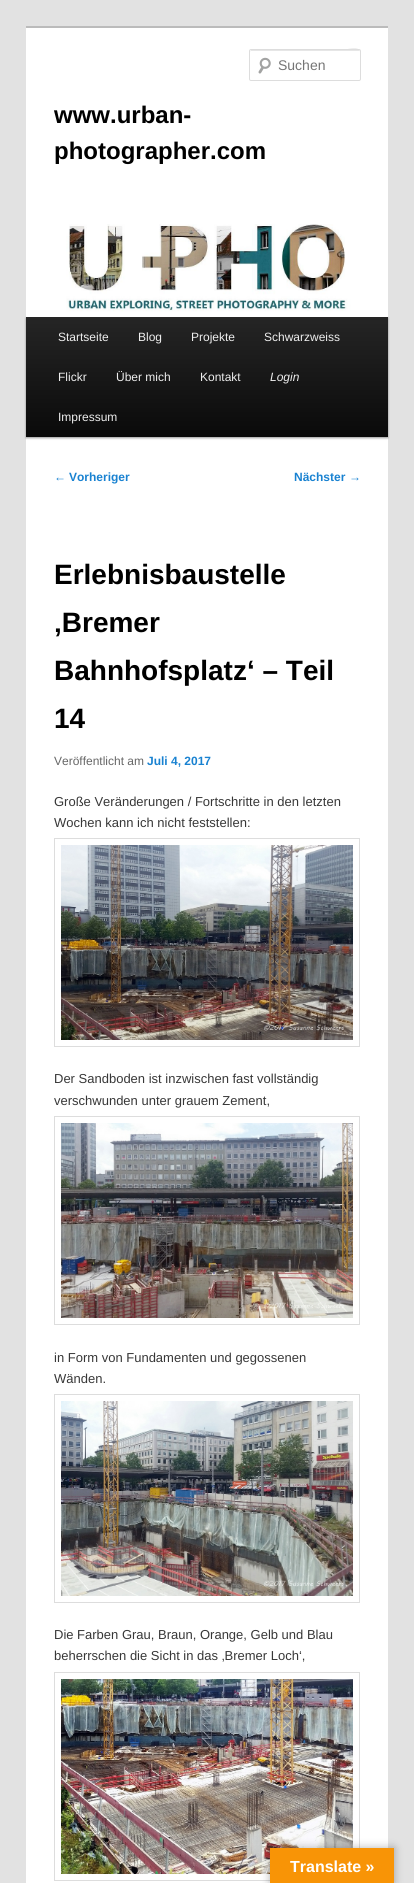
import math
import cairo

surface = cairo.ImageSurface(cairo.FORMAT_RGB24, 414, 1883)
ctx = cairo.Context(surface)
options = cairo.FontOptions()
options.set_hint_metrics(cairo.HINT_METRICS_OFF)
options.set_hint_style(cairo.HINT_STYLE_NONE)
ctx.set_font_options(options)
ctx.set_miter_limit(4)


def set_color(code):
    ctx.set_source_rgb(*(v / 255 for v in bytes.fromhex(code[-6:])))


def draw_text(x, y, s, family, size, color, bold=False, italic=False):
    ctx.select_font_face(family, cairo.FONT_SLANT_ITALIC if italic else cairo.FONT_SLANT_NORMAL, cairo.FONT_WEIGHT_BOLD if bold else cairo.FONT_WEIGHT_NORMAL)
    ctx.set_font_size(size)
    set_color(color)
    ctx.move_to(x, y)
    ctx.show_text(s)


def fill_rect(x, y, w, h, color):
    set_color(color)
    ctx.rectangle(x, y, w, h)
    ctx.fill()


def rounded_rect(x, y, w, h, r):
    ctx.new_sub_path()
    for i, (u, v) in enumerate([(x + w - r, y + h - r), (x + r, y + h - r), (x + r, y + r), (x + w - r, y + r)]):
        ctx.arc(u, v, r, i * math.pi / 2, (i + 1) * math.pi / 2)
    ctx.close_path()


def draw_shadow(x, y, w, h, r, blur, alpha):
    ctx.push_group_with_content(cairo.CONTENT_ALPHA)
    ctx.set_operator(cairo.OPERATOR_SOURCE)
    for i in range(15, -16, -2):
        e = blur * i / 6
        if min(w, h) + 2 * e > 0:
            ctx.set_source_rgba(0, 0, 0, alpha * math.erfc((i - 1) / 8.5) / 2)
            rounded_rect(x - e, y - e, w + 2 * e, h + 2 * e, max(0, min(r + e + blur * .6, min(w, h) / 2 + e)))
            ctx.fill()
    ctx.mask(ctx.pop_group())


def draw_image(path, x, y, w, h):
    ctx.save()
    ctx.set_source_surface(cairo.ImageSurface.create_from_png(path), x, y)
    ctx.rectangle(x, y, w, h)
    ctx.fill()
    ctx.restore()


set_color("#e2e2e2")
ctx.paint()
fill_rect(26, 28, 362, 1855, "#ffffff")
fill_rect(26, 26, 362, 2, "#bbbbbb")
draw_image("assets/img1.png", 258, 57, 13, 17)
set_color("#e6e6e6")
ctx.new_path()
ctx.move_to(251, 51)
ctx.line_to(360, 51)
ctx.line_to(360, 52)
ctx.curve_to(360, 45, 345, 50, 341, 50)
ctx.line_to(251, 50)
ctx.line_to(250, 52)
ctx.curve_to(250, 51, 250, 51, 251, 51)
ctx.close_path()
ctx.fill()
rounded_rect(249.5, 49.5, 111, 31, 1.5)
set_color("#dddddd")
ctx.set_line_width(1)
ctx.stroke()
draw_text(278, 70, "Suchen", "Liberation Sans", 14, "#757575")
draw_text(54, 123, "www.urban-", "Liberation Sans", 24, "#000000", bold=True)
draw_text(54, 159, "photographer.com", "Liberation Sans", 24, "#000000", bold=True)
set_color("#000000")
draw_shadow(26, 318, 362, 120, 0, 1, 0.4)
draw_image("assets/img2.png", 26, 224, 362, 93)
gradient = cairo.LinearGradient(207, 317, 207, 437)
gradient.add_color_stop_rgba(0, 0.145, 0.145, 0.145, 1)
gradient.add_color_stop_rgba(1, 0.039, 0.039, 0.039, 1)
ctx.set_source(gradient)
ctx.rectangle(26, 317, 362, 120)
ctx.fill()
draw_text(58, 341, "Startseite", "Liberation Sans", 12, "#eeeeee")
draw_text(138, 341, "Blog", "Liberation Sans", 12, "#eeeeee")
draw_text(191, 341, "Projekte", "Liberation Sans", 12, "#eeeeee")
draw_text(264, 341, "Schwarzweiss", "Liberation Sans", 12, "#eeeeee")
draw_text(58, 381, "Flickr", "Liberation Sans", 12, "#eeeeee")
draw_text(116, 381, "Über mich", "Liberation Sans", 12, "#eeeeee")
draw_text(200, 381, "Kontakt", "Liberation Sans", 12, "#eeeeee")
draw_text(270, 381, "Login", "Liberation Sans", 12, "#eeeeee", italic=True)
draw_text(58, 421, "Impressum", "Liberation Sans", 12, "#eeeeee")
draw_text(54, 481, "←", "Liberation Sans", 12, "#1982d1")
draw_text(69, 481, "Vorheriger", "Liberation Sans", 12, "#1982d1", bold=True)
draw_text(294, 481, "Nächster", "Liberation Sans", 12, "#1982d1", bold=True)
draw_text(349, 481, "→", "Liberation Sans", 12, "#1982d1")
draw_text(54, 584, "Erlebnisbaustelle", "Liberation Sans", 28, "#000000", bold=True)
draw_text(54, 632, "‚Bremer", "Liberation Sans", 28, "#000000", bold=True)
draw_text(54, 680, "Bahnhofsplatz‘ – Teil", "Liberation Sans", 28, "#000000", bold=True)
draw_text(54, 728, "14", "Liberation Sans", 28, "#000000", bold=True)
draw_text(54, 765, "Veröffentlicht am", "Liberation Sans", 12, "#666666")
draw_text(147, 765, "Juli 4, 2017", "Liberation Sans", 12, "#1982d1", bold=True)
draw_text(54, 806, "Große Veränderungen / Fortschritte in den letzten", "Liberation Sans", 13, "#373737")
draw_text(54, 827, "Wochen kann ich nicht feststellen:", "Liberation Sans", 13, "#373737")
ctx.rectangle(54.5, 838.5, 305, 208)
set_color("#dddddd")
ctx.stroke()
draw_image("assets/img3.png", 61, 845, 292, 195)
draw_text(54, 1083, "Der Sandboden ist inzwischen fast vollständig", "Liberation Sans", 13, "#373737")
draw_text(54, 1105, "verschwunden unter grauem Zement,", "Liberation Sans", 13, "#373737")
ctx.rectangle(54.5, 1116.5, 305, 208)
set_color("#dddddd")
ctx.stroke()
draw_image("assets/img4.png", 61, 1123, 292, 195)
draw_text(54, 1362, "in Form von Fundamenten und gegossenen", "Liberation Sans", 13, "#373737")
draw_text(54, 1383, "Wänden.", "Liberation Sans", 13, "#373737")
ctx.rectangle(54.5, 1394.5, 305, 208)
set_color("#dddddd")
ctx.stroke()
draw_image("assets/img5.png", 61, 1401, 292, 195)
draw_text(54, 1639, "Die Farben Grau, Braun, Orange, Gelb und Blau", "Liberation Sans", 13, "#373737")
draw_text(54, 1660, "beherrschen die Sicht in das ‚Bremer Loch‘,", "Liberation Sans", 13, "#373737")
ctx.rectangle(54.5, 1672.5, 305, 208)
set_color("#dddddd")
ctx.stroke()
draw_image("assets/img6.png", 61, 1679, 292, 195)
set_color("#000000")
draw_shadow(270, 1848, 124, 35, 0, 4.5, 0.3)
fill_rect(270, 1848, 124, 35, "#f89406")
draw_text(290, 1872, "Translate »", "Liberation Sans", 16, "#ffffff", bold=True)
surface.write_to_png("output.png")
